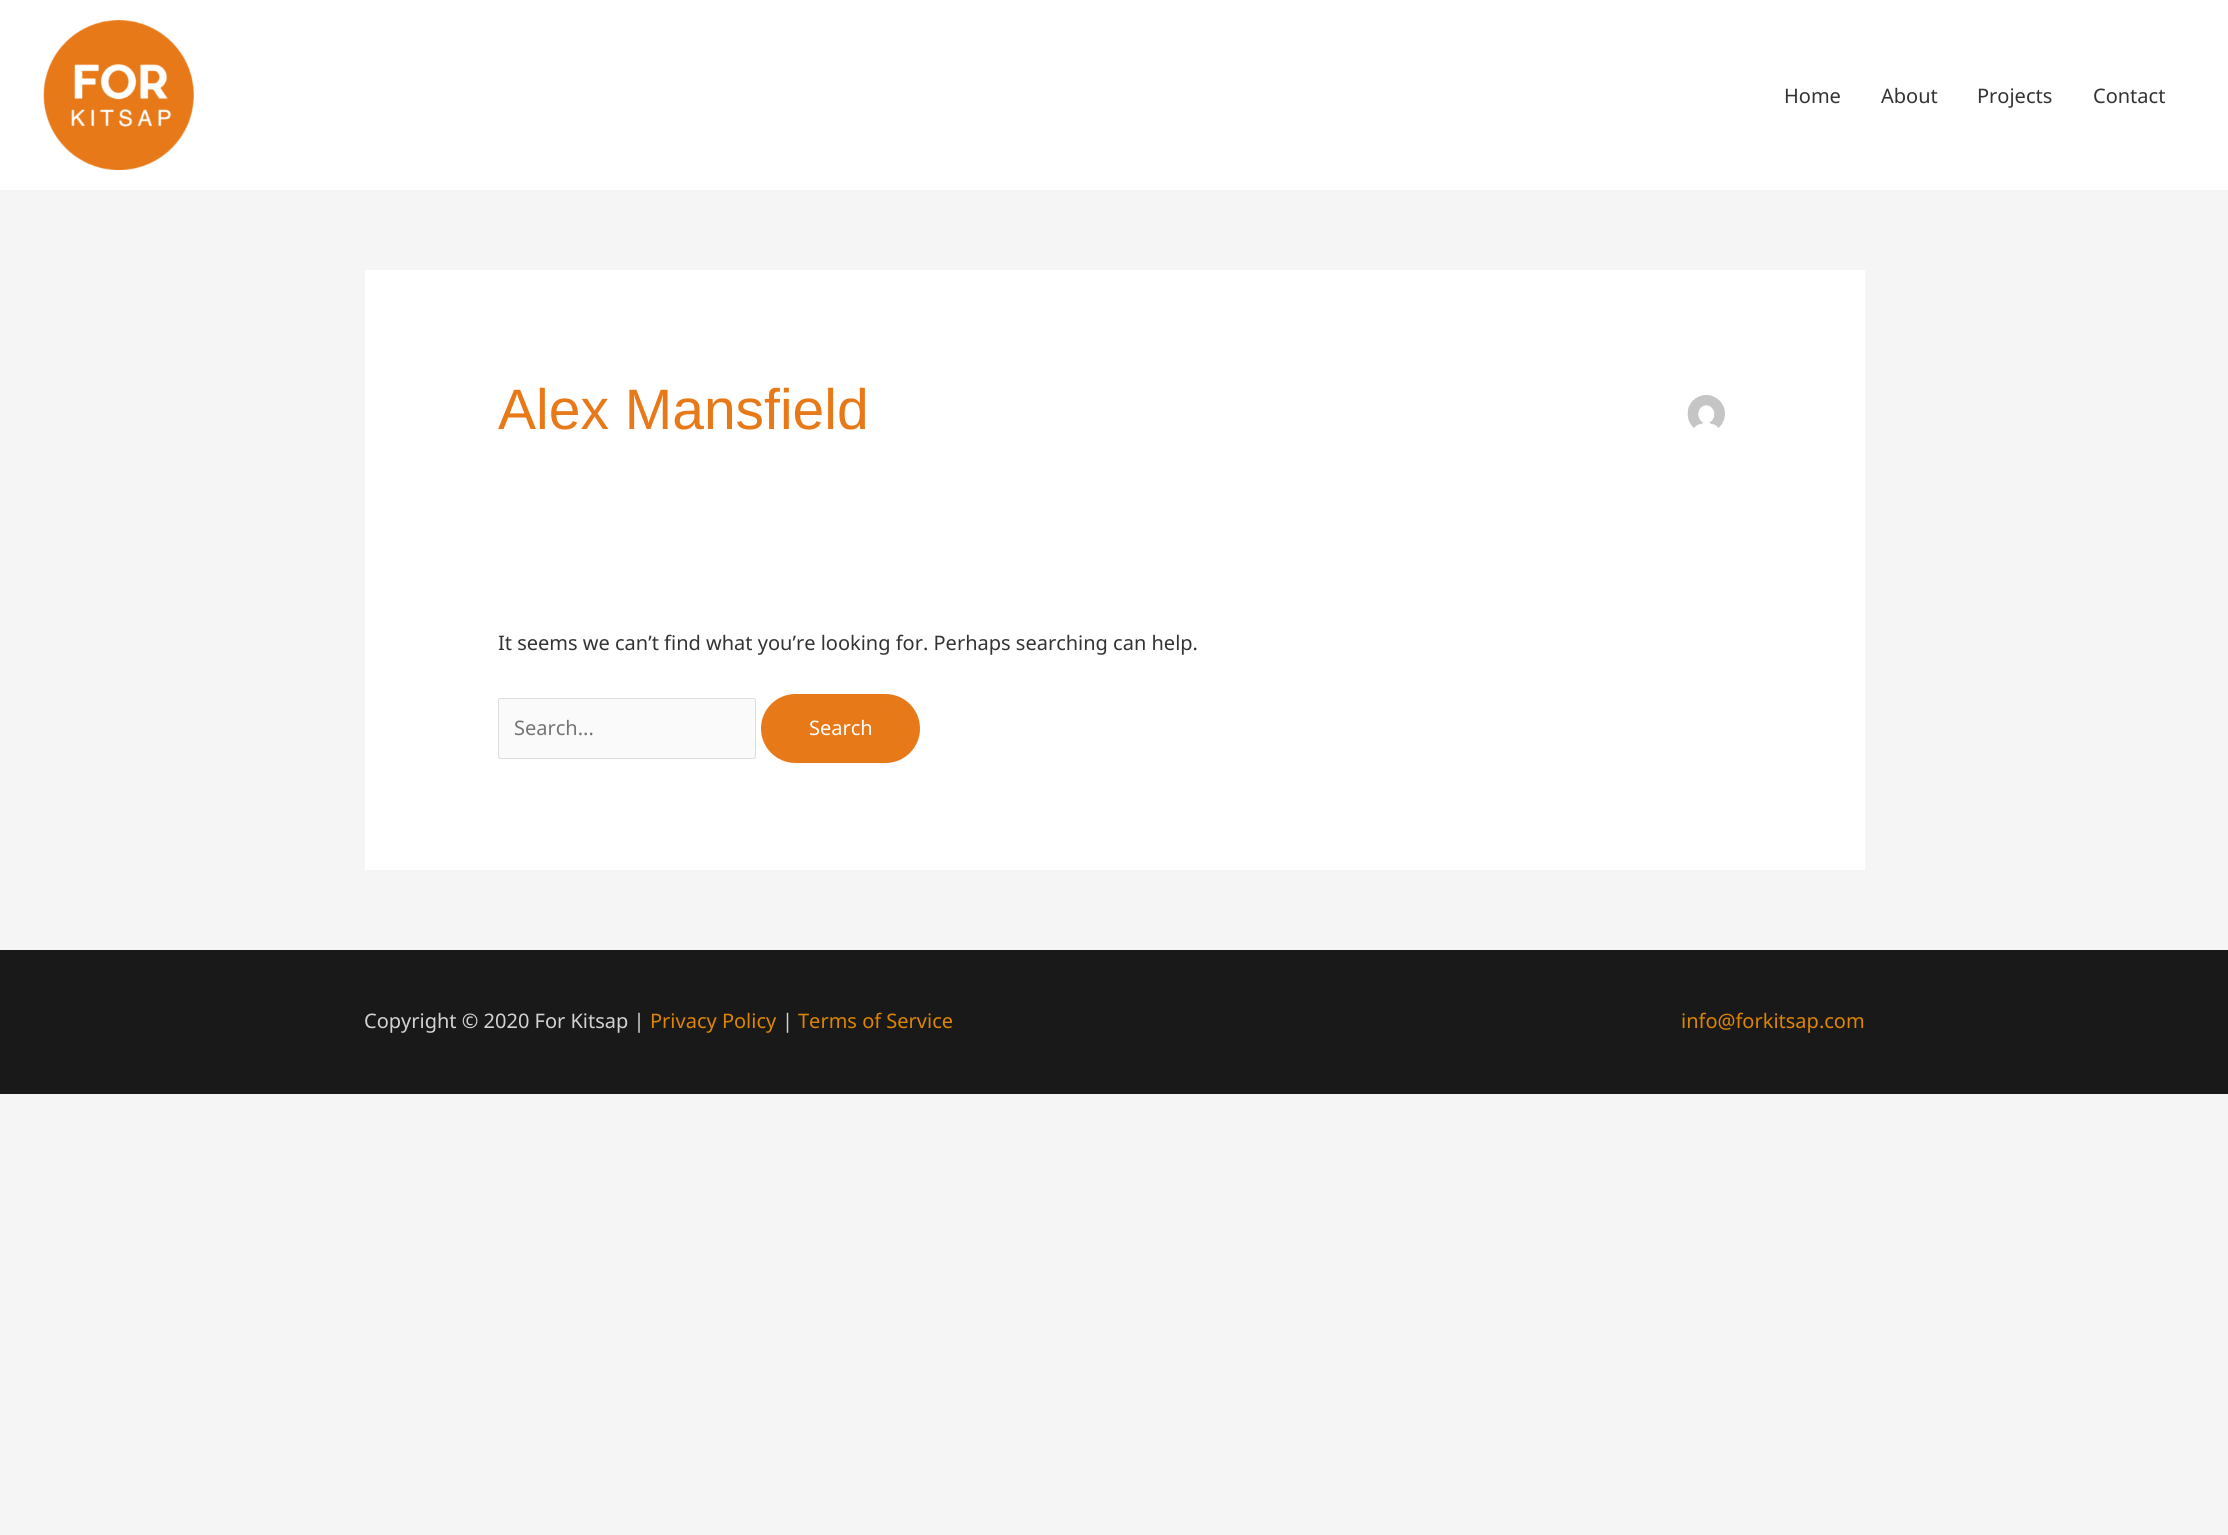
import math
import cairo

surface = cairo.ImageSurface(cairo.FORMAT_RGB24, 2228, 1535)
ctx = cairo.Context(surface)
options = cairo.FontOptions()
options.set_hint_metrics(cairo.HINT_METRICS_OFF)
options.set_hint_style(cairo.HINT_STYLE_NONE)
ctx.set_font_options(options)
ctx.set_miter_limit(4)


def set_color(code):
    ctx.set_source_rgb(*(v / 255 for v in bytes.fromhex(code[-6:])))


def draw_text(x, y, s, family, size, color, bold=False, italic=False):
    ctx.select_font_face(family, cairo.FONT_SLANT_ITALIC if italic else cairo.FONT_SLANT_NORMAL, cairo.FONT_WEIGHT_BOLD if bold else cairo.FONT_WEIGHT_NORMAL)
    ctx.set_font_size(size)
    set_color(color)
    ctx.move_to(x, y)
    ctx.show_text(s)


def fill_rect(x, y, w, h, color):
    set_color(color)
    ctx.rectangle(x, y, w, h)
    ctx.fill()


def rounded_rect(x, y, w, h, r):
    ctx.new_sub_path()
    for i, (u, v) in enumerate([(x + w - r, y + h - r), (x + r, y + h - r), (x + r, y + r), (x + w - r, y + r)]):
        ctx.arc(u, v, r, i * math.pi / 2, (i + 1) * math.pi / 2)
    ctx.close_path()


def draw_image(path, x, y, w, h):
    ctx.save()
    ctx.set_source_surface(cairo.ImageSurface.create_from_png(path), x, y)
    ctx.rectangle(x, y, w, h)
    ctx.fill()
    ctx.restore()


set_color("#f5f5f5")
ctx.paint()
fill_rect(0, 0, 2228, 190, "#ffffff")
draw_image("assets/img1.png", 43, 20, 151, 150)
draw_text(1784, 103, "Home", "Noto Sans", 20, "#333333")
draw_text(1881, 103, "About", "Noto Sans", 20, "#333333")
draw_text(1977, 103, "Projects", "Noto Sans", 20, "#333333")
draw_text(2093, 103, "Contact", "Noto Sans", 20, "#333333")
fill_rect(365, 270, 1500, 600, "#ffffff")
draw_text(498, 429, "Alex Mansfield", "Liberation Sans", 57, "#e87919")
draw_image("assets/img2.png", 1687, 395, 38, 33)
draw_text(498, 650, "It seems we can’t find what you’re looking for. Perhaps searching can help.", "Noto Sans", 20, "#333333")
set_color("#fafafa")
rounded_rect(498.5, 698.5, 257, 60, 2)
ctx.fill_preserve()
set_color("#dddddd")
ctx.set_line_width(1)
ctx.stroke()
draw_text(514, 735, "Search...", "Noto Sans", 20, "#757575")
set_color("#e87919")
rounded_rect(761, 694, 159, 69, 34.5)
ctx.fill()
draw_text(809, 735, "Search", "Noto Sans", 20, "#ffffff")
fill_rect(0, 950, 2228, 144, "#191919")
draw_text(364, 1028, "Copyright © 2020 For Kitsap |", "Noto Sans", 20, "#d3d3d3")
draw_text(650, 1028, "Privacy Policy", "Noto Sans", 20, "#dd8500")
draw_text(782, 1028, "|", "Noto Sans", 20, "#d3d3d3")
draw_text(798, 1028, "Terms of Service", "Noto Sans", 20, "#dd8500")
draw_text(1681, 1028, "info@forkitsap.com", "Noto Sans", 20, "#dd8500")
surface.write_to_png("output.png")
